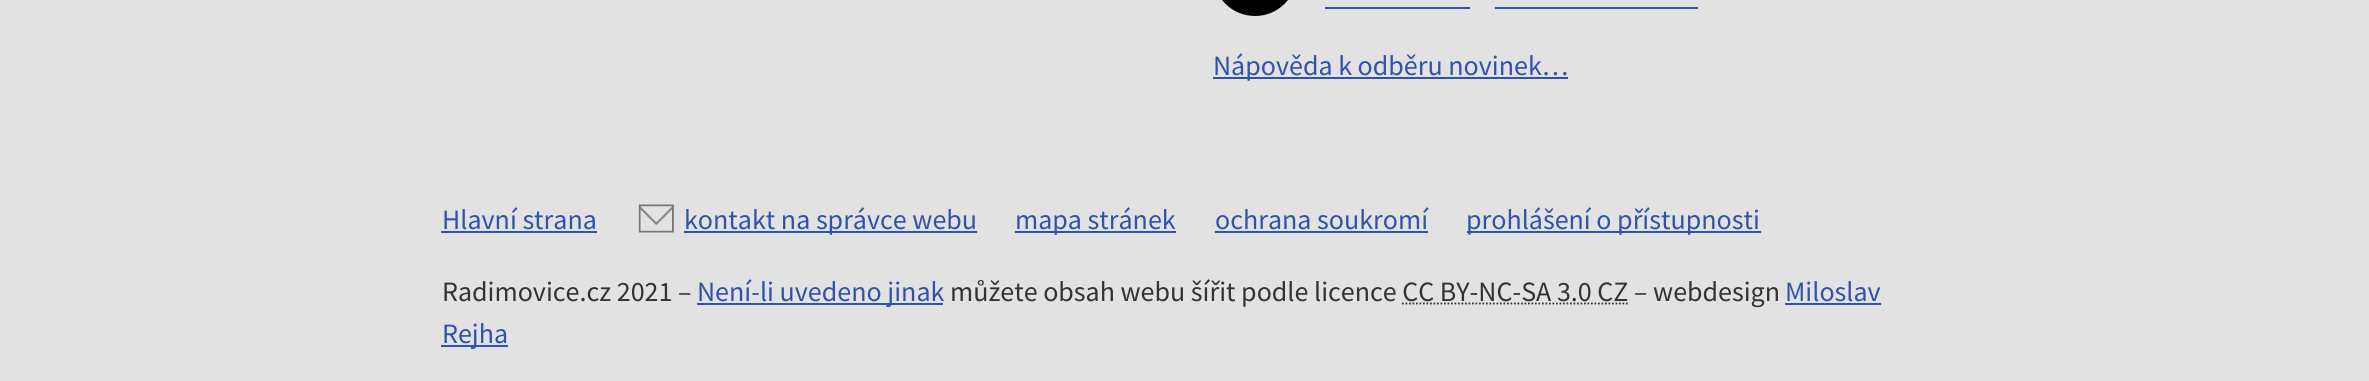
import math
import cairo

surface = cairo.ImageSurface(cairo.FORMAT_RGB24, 2369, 381)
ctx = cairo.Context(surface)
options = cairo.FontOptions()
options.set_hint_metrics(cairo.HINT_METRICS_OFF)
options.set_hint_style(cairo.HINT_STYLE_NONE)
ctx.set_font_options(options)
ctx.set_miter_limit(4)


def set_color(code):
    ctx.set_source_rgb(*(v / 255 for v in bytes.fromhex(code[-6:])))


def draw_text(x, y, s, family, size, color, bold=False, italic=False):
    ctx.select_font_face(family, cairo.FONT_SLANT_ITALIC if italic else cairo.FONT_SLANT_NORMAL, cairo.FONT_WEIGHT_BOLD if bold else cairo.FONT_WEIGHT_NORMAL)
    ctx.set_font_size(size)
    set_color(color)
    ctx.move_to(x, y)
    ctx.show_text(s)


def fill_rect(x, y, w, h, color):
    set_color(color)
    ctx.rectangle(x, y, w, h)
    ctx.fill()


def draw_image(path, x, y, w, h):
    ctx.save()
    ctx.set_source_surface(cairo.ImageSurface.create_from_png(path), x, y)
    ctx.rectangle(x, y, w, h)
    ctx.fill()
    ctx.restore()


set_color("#e2e2e2")
ctx.paint()
set_color("#000000")
ctx.arc(1255, -26, 42, 0, 2 * math.pi)
ctx.fill()
fill_rect(1325, 7, 145, 2, "#2f52ac")
fill_rect(1495, 7, 203, 2, "#2f52ac")
fill_rect(1213, 77, 355, 2, "#2f52ac")
draw_text(1213, 75, "Nápověda k odběru novinek…", "Source Sans Pro", 28, "#2f52ac")
draw_text(442, 229, "Hlavní strana", "Source Sans Pro", 28, "#2f52ac")
fill_rect(441, 231, 156, 2, "#2f52ac")
draw_image("assets/img1.png", 638, 204, 36, 29)
fill_rect(684, 231, 293, 2, "#2f52ac")
draw_text(684, 229, "kontakt na správce webu", "Source Sans Pro", 28, "#2f52ac")
fill_rect(1015, 231, 161, 2, "#2f52ac")
draw_text(1015, 229, "mapa stránek", "Source Sans Pro", 28, "#2f52ac")
draw_text(1215, 229, "ochrana soukromí", "Source Sans Pro", 28, "#2f52ac")
fill_rect(1215, 231, 213, 2, "#2f52ac")
fill_rect(1467, 231, 294, 2, "#2f52ac")
draw_text(1466, 229, "prohlášení o přístupnosti", "Source Sans Pro", 28, "#2f52ac")
draw_text(442, 301, "Radimovice.cz 2021 –", "Source Sans Pro", 28, "#333333")
fill_rect(697, 303, 246, 2, "#2f52ac")
draw_text(697, 301, "Není-li uvedeno jinak", "Source Sans Pro", 28, "#2f52ac")
draw_text(950, 301, "můžete obsah webu šířit podle licence CC BY-NC-SA 3.0 CZ – webdesign", "Source Sans Pro", 28, "#333333")
draw_text(1785, 301, "Miloslav", "Source Sans Pro", 28, "#2f52ac")
fill_rect(1785, 303, 96, 2, "#2f52ac")
ctx.new_path()
ctx.move_to(1402, 303.5)
ctx.line_to(1628, 303.5)
set_color("#333333")
ctx.set_line_width(1.8)
ctx.set_dash([1.75, 1.75])
ctx.stroke()
fill_rect(441, 345, 67, 2, "#2f52ac")
draw_text(442, 343, "Rejha", "Source Sans Pro", 28, "#2f52ac")
surface.write_to_png("output.png")
